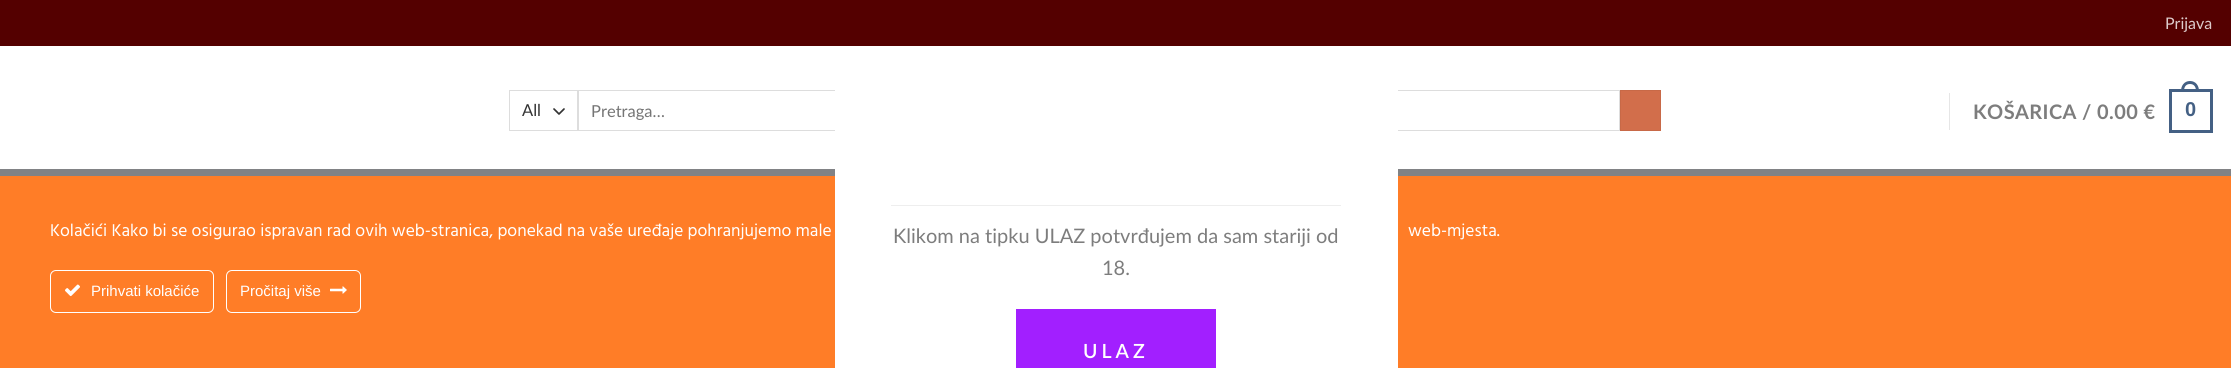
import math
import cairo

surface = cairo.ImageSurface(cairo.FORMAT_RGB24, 2231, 368)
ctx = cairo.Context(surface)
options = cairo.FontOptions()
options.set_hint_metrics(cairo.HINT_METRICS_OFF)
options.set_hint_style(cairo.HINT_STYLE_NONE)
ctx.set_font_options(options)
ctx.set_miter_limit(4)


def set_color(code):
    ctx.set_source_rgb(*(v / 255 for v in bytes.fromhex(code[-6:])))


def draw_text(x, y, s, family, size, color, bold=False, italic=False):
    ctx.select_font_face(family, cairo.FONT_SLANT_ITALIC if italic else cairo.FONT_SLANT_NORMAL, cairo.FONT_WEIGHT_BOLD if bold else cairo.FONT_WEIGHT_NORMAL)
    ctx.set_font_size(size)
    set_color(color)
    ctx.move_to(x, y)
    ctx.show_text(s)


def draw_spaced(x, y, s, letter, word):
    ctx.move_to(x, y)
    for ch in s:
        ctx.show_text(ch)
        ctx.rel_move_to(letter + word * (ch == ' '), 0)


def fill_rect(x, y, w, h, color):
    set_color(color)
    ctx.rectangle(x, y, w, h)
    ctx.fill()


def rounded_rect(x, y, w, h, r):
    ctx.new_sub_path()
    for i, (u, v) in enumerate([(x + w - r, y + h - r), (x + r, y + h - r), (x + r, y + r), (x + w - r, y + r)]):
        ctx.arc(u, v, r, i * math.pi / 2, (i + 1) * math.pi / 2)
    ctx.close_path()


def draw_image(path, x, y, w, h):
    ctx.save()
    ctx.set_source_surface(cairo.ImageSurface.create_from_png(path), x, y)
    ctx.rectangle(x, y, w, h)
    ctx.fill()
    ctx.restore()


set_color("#ffffff")
ctx.paint()
fill_rect(0, 0, 2231, 46, "#540000")
draw_text(2165, 29, "Prijava", "Lato", 16, "#ddcccc")
ctx.new_path()
ctx.move_to(554, 109)
ctx.line_to(559, 114)
ctx.line_to(564, 109)
set_color("#333333")
ctx.set_line_width(1.7)
ctx.set_line_cap(cairo.LINE_CAP_ROUND)
ctx.set_line_join(cairo.LINE_JOIN_ROUND)
ctx.stroke()
ctx.rectangle(509.5, 90.5, 68, 40)
set_color("#dddddd")
ctx.set_line_width(1)
ctx.set_line_cap(cairo.LINE_CAP_BUTT)
ctx.set_line_join(cairo.LINE_JOIN_MITER)
ctx.stroke()
draw_text(522, 116, "All", "Lato", 16.5, "#333333")
ctx.rectangle(578.5, 90.5, 1041, 40)
set_color("#dddddd")
ctx.stroke()
draw_text(591, 117, "Pretraga…", "Lato", 16.5, "#757575")
set_color("#d26e4b")
ctx.rectangle(1620.5, 90.5, 40, 40)
ctx.fill_preserve()
set_color("#c86947")
ctx.stroke()
fill_rect(1949, 93, 1, 37, "#e6e6e6")
ctx.select_font_face("Lato", cairo.FONT_SLANT_NORMAL, cairo.FONT_WEIGHT_BOLD)
ctx.set_font_size(20)
set_color("#7d7d7d")
draw_spaced(1973, 119, "KOŠARICA / 0.00 €", 0.4, 0)
ctx.rectangle(2170.5, 90.5, 41, 41)
set_color("#446084")
ctx.set_line_width(3)
ctx.stroke()
ctx.set_fill_rule(cairo.FILL_RULE_EVEN_ODD)
ctx.new_path()
ctx.move_to(2190, 81)
ctx.curve_to(2196, 81, 2199, 86, 2199, 91)
ctx.line_to(2181, 91)
ctx.curve_to(2181, 86, 2184, 81, 2190, 81)
ctx.close_path()
ctx.move_to(2190, 84)
ctx.curve_to(2194.5, 84, 2196, 87.5, 2196, 91)
ctx.line_to(2184, 91)
ctx.curve_to(2184, 87.5, 2185.5, 84, 2190, 84)
ctx.close_path()
ctx.fill()
ctx.select_font_face("Liberation Sans", cairo.FONT_SLANT_NORMAL, cairo.FONT_WEIGHT_BOLD)
draw_spaced(2185, 116, "0", 0.4, 0)
fill_rect(0, 169, 2231, 7, "#818285")
fill_rect(0, 176, 2231, 192, "#ff7d27")
draw_text(50, 236, "Kolačići Kako bi se osigurao ispravan rad ovih web-stranica, ponekad na vaše uređaje pohranjujemo male", "Hind", 17.5, "#ffffff")
draw_text(1408, 236, "web-mjesta.", "Hind", 17.5, "#ffffff")
rounded_rect(50.5, 270.5, 163, 42, 5.5)
ctx.set_line_width(1)
ctx.stroke()
draw_image("assets/img1.png", 65, 284, 15, 13)
draw_text(91, 296, "Prihvati kolačiće", "Liberation Sans", 15, "#ffffff")
rounded_rect(226.5, 270.5, 134, 42, 5.5)
ctx.stroke()
draw_text(240, 296, "Pročitaj više", "Liberation Sans", 15, "#ffffff")
draw_image("assets/img2.png", 330, 286, 17, 8)
fill_rect(835, 90, 563, 278, "#ffffff")
fill_rect(891, 205, 450, 1, "#eeeeee")
draw_text(893, 243, "Klikom na tipku ULAZ potvrđujem da sam stariji od", "Lato", 20, "#7d7d7d")
draw_text(1102, 275, "18.", "Lato", 20, "#7d7d7d")
fill_rect(1016, 309, 200, 59, "#a21fff")
ctx.select_font_face("Lato SemiBold")
ctx.set_font_size(19.5)
set_color("#ffffff")
draw_spaced(1083, 358, "ULAZ", 4, 0)
surface.write_to_png("output.png")
